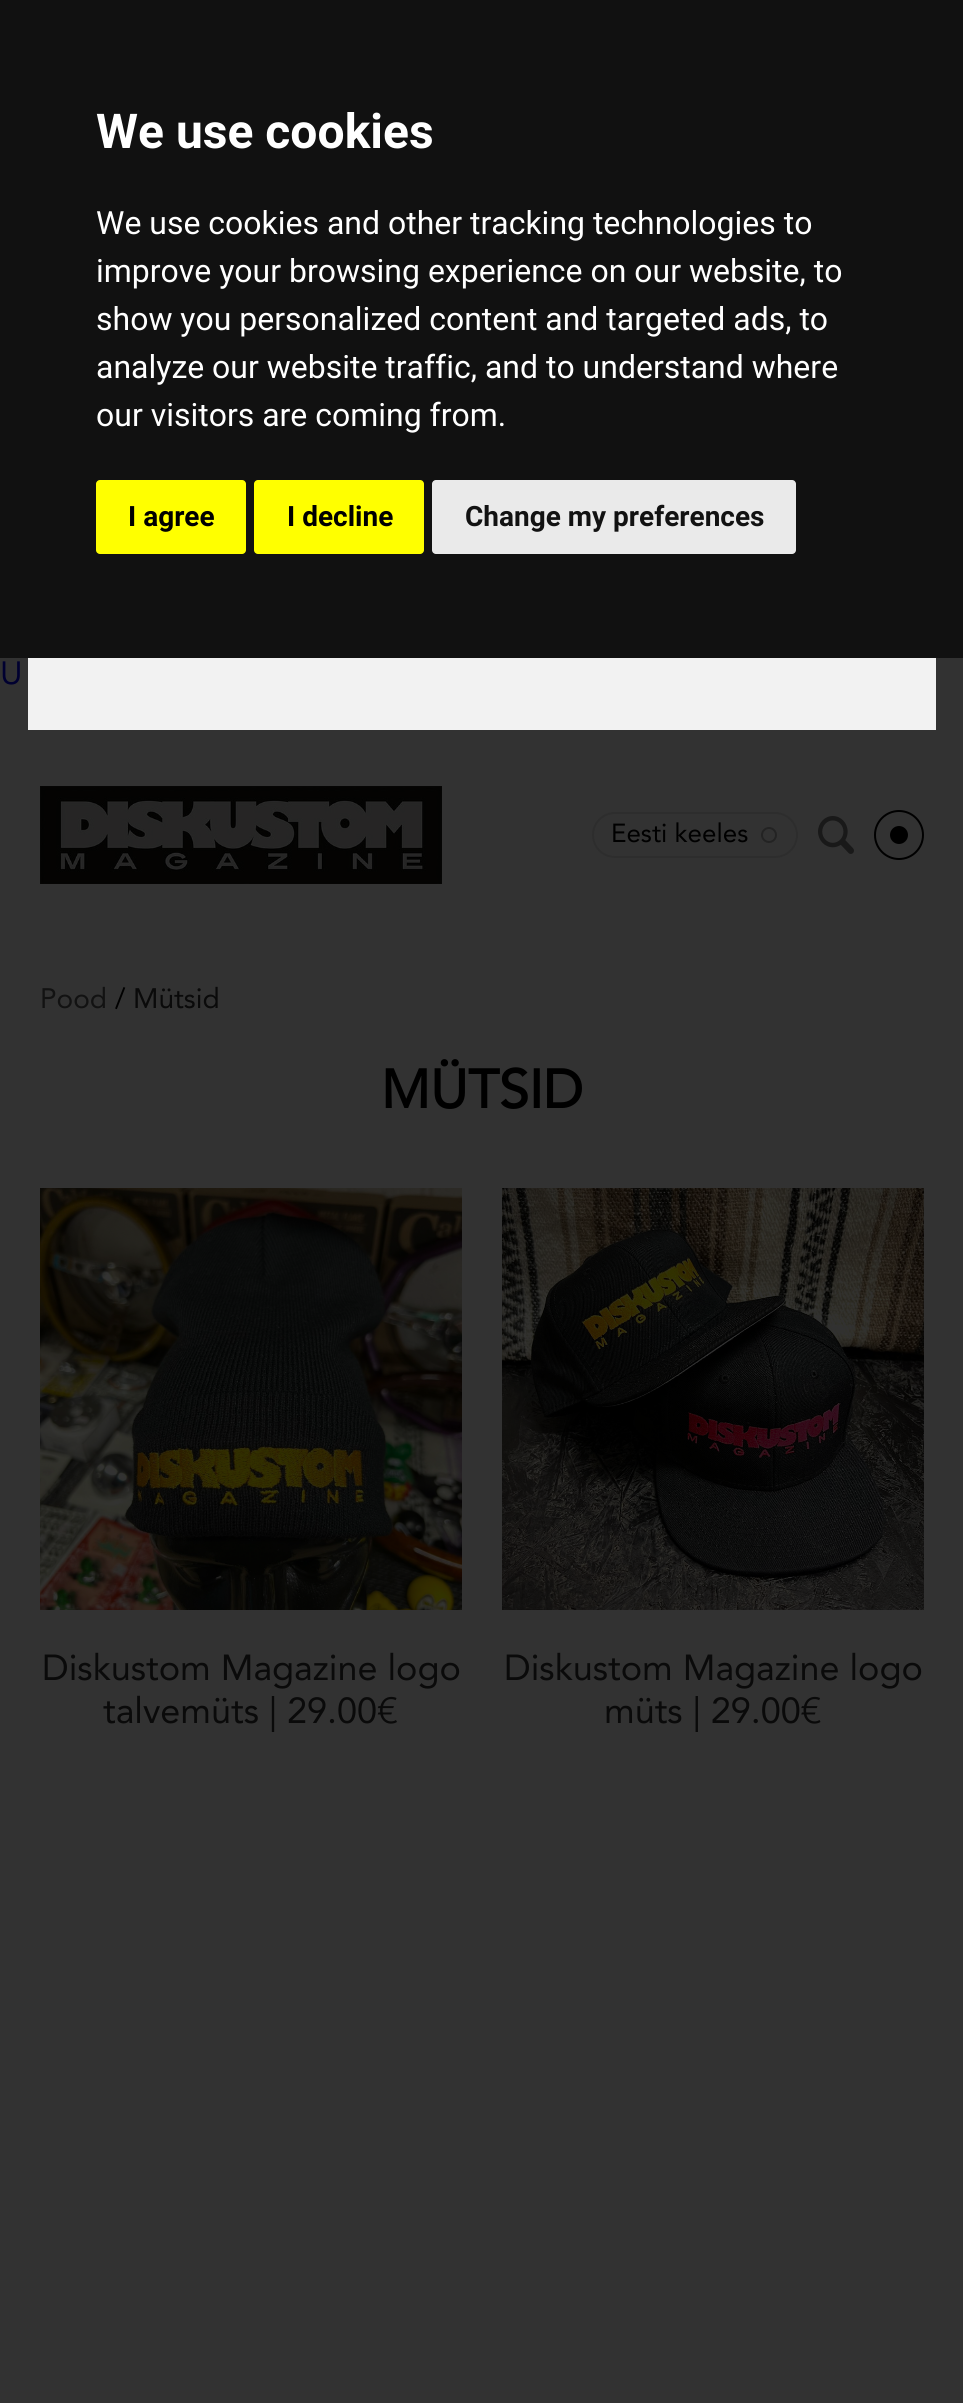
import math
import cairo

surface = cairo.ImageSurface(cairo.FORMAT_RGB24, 963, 2403)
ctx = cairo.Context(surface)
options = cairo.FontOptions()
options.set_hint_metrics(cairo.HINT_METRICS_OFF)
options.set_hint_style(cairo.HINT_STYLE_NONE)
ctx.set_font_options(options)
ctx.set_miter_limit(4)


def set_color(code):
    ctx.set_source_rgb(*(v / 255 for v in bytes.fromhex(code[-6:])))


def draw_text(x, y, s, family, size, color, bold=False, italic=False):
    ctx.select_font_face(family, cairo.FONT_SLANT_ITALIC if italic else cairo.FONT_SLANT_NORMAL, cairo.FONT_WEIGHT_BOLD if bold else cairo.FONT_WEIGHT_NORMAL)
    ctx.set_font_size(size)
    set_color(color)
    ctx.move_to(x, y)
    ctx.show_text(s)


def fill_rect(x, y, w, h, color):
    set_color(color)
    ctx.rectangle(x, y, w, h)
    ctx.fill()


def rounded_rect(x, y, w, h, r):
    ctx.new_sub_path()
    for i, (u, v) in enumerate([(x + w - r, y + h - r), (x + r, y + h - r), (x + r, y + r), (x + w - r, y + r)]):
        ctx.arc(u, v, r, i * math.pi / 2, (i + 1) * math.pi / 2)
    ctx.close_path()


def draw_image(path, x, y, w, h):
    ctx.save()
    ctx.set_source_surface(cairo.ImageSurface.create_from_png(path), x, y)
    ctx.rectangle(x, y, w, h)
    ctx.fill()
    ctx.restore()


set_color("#323232")
ctx.paint()
fill_rect(0, 0, 963, 658, "#111111")
draw_text(96, 148, "We use cookies", "Roboto", 48, "#ffffff", bold=True)
draw_text(96, 234, "We use cookies and other tracking technologies to", "Roboto", 32, "#ffffff")
draw_text(96, 282, "improve your browsing experience on our website, to", "Roboto", 32, "#ffffff")
draw_text(96, 330, "show you personalized content and targeted ads, to", "Roboto", 32, "#ffffff")
draw_text(96, 378, "analyze our website traffic, and to understand where", "Roboto", 32, "#ffffff")
draw_text(96, 426, "our visitors are coming from.", "Roboto", 32, "#ffffff")
set_color("#ffff00")
rounded_rect(96, 480, 150, 74, 4)
ctx.fill()
draw_text(128, 526, "I agree", "Roboto", 28, "#000000", bold=True)
set_color("#ffff00")
rounded_rect(254, 480, 170, 74, 4)
ctx.fill()
draw_text(287, 526, "I decline", "Roboto", 28, "#000000", bold=True)
set_color("#eaeaea")
rounded_rect(432, 480, 364, 74, 4)
ctx.fill()
draw_text(465, 526, "Change my preferences", "Roboto", 28, "#121212", bold=True)
draw_text(0, 684, "U", "Avenir", 32, "#000030")
fill_rect(28, 658, 908, 72, "#f2f2f2")
draw_image("assets/img1.png", 40, 786, 402, 98)
rounded_rect(593, 813, 204, 44, 22)
set_color("#2d2d2d")
ctx.stroke()
draw_text(611, 842, "Eesti keeles", "Avenir", 26, "#000000")
ctx.new_path()
ctx.arc(769, 835, 7, 0, 2 * math.pi)
set_color("#232323")
ctx.stroke()
draw_image("assets/img2.png", 818, 816, 36, 38)
ctx.arc(899, 835, 24, 0, 2 * math.pi)
set_color("#000000")
ctx.stroke()
ctx.arc(899, 835, 9, 0, 2 * math.pi)
ctx.fill()
draw_text(40, 1008, "Pood", "Avenir", 28, "#121212")
draw_text(115, 1008, "/", "Avenir", 28, "#000000")
draw_text(133, 1008, "Mütsid", "Avenir", 28, "#0a0a0a")
draw_text(381, 1108, "MÜTSID", "Avenir", 54, "#000000", bold=True)
draw_image("assets/img3.png", 40, 1188, 422, 422)
draw_text(42, 1680, "Diskustom Magazine logo", "Avenir", 36, "#0a0a0a")
draw_text(103, 1723, "talvemüts | 29.00€", "Avenir", 36, "#0a0a0a")
draw_image("assets/img4.png", 502, 1188, 422, 422)
draw_text(504, 1680, "Diskustom Magazine logo", "Avenir", 36, "#0a0a0a")
draw_text(604, 1723, "müts | 29.00€", "Avenir", 36, "#0a0a0a")
surface.write_to_png("output.png")
